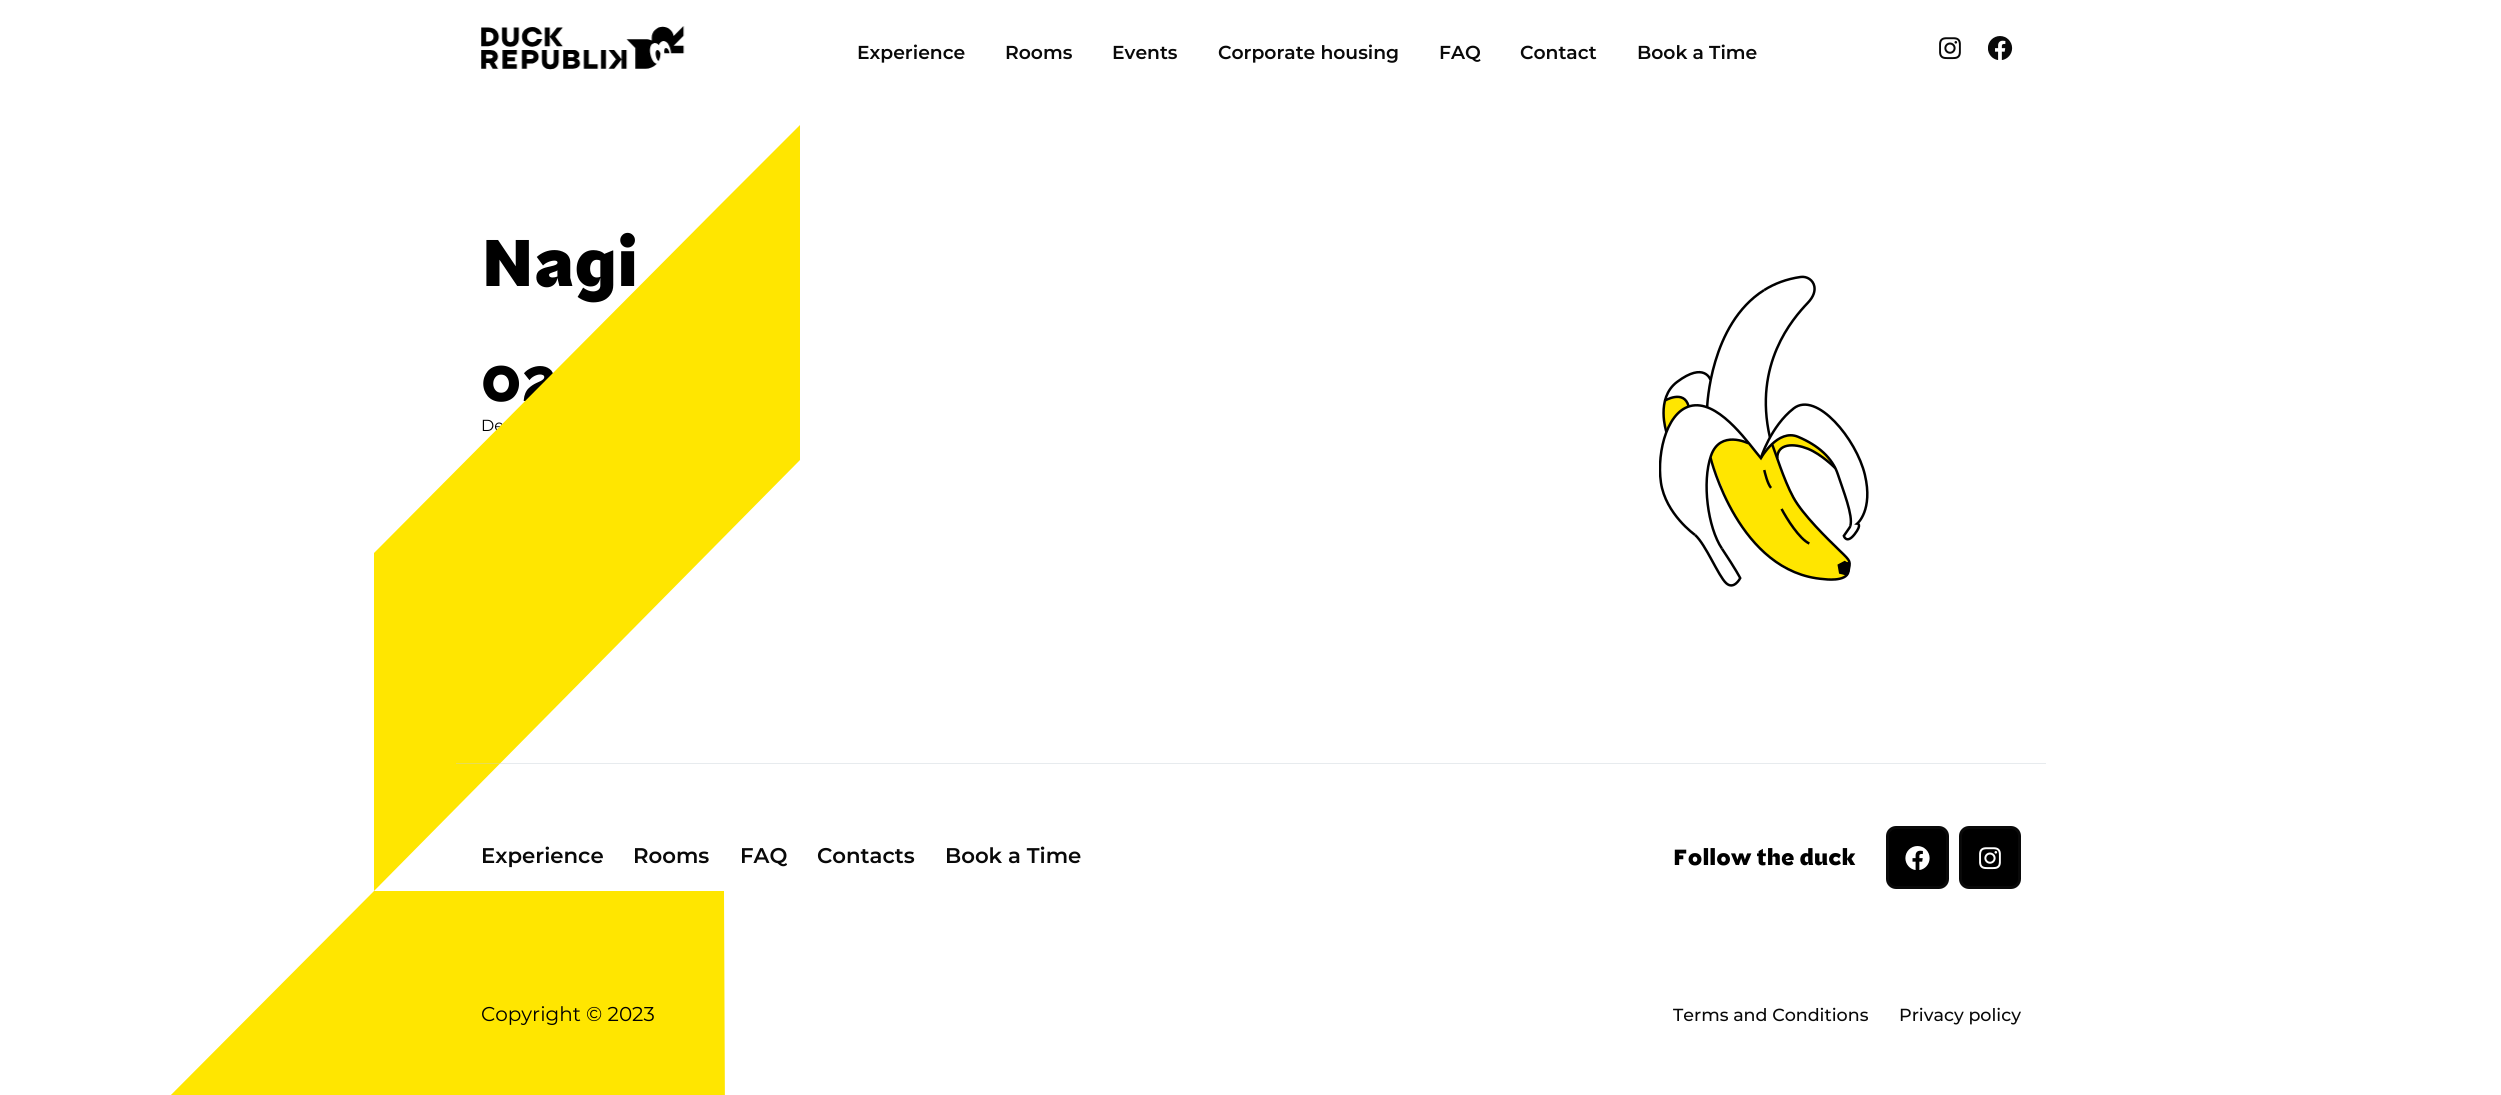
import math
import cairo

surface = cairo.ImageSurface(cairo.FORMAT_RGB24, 2501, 1095)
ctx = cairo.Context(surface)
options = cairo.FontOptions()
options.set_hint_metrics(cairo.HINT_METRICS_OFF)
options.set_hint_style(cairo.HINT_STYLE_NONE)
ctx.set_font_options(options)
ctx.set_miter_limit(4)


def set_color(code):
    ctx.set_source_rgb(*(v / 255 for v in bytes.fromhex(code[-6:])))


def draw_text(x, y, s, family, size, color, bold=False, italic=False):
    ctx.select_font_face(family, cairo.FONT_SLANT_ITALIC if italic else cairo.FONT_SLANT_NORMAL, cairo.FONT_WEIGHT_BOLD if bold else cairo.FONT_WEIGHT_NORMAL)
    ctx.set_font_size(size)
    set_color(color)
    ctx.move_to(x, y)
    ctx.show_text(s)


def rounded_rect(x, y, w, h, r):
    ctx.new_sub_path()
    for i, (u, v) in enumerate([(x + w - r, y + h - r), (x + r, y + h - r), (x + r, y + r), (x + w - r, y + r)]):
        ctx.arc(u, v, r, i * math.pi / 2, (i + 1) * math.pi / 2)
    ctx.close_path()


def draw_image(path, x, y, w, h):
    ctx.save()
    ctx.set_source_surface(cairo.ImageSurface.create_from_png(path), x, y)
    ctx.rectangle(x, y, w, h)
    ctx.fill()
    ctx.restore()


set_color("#ffffff")
ctx.paint()
draw_image("assets/img1.png", 481, 26, 204, 44)
draw_text(857, 59, "Experience", "Montserrat SemiBold", 18.75, "#090909")
draw_text(1005, 59, "Rooms", "Montserrat SemiBold", 18.75, "#090909")
draw_text(1112, 59, "Events", "Montserrat SemiBold", 18.75, "#090909")
draw_text(1218, 59, "Corporate housing", "Montserrat SemiBold", 18.75, "#090909")
draw_text(1439, 59, "FAQ", "Montserrat SemiBold", 18.75, "#090909")
draw_text(1520, 59, "Contact", "Montserrat SemiBold", 18.75, "#090909")
draw_text(1637, 59, "Book a Time", "Montserrat SemiBold", 18.75, "#090909")
draw_image("assets/img2.png", 1939, 37, 22, 23)
draw_image("assets/img3.png", 1988, 36, 25, 24)
set_color("#ffe600")
ctx.new_path()
ctx.move_to(725, 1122)
ctx.line_to(724, 891)
ctx.line_to(374, 891)
ctx.line_to(144, 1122)
ctx.close_path()
ctx.fill()
draw_text(481, 286, "Nagi", "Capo", 60, "#000000", bold=True)
draw_text(481, 401, "02", "Capo", 45, "#000000", bold=True)
draw_text(481, 431, "De", "Montserrat", 16, "#000000")
set_color("#ffe600")
ctx.new_path()
ctx.move_to(800, 125)
ctx.line_to(717, 208)
ctx.line_to(374, 553)
ctx.line_to(374, 891)
ctx.line_to(800, 460)
ctx.close_path()
ctx.fill()
draw_image("assets/img4.png", 1659, 275, 210, 312)
ctx.set_source_rgba(0.769, 0.804, 0.835, 0.4)
ctx.rectangle(456, 763, 1590, 1)
ctx.fill()
draw_text(481, 863, "Experience", "Montserrat SemiBold", 21.25, "#090909")
draw_text(633, 863, "Rooms", "Montserrat SemiBold", 21.25, "#090909")
draw_text(740, 863, "FAQ", "Montserrat SemiBold", 21.25, "#090909")
draw_text(817, 863, "Contacts", "Montserrat SemiBold", 21.25, "#090909")
draw_text(945, 863, "Book a Time", "Montserrat SemiBold", 21.25, "#090909")
draw_text(1673, 865, "Follow the duck", "Capo", 20, "#000000", bold=True)
rounded_rect(1887.5, 827.5, 60, 60, 8.5)
ctx.fill_preserve()
set_color("#090909")
ctx.set_line_width(3)
ctx.stroke()
draw_image("assets/img5.png", 1905, 846, 25, 24)
set_color("#000000")
rounded_rect(1960.5, 827.5, 59, 60, 8.5)
ctx.fill_preserve()
set_color("#090909")
ctx.stroke()
draw_image("assets/img6.png", 1979, 847, 22, 23)
draw_text(481, 1021, "Copyright © 2023", "Montserrat", 20, "#000000")
draw_text(1673, 1021, "Terms and Conditions", "Montserrat Medium", 17.5, "#090909")
draw_text(1899, 1021, "Privacy policy", "Montserrat Medium", 17.5, "#090909")
surface.write_to_png("output.png")
